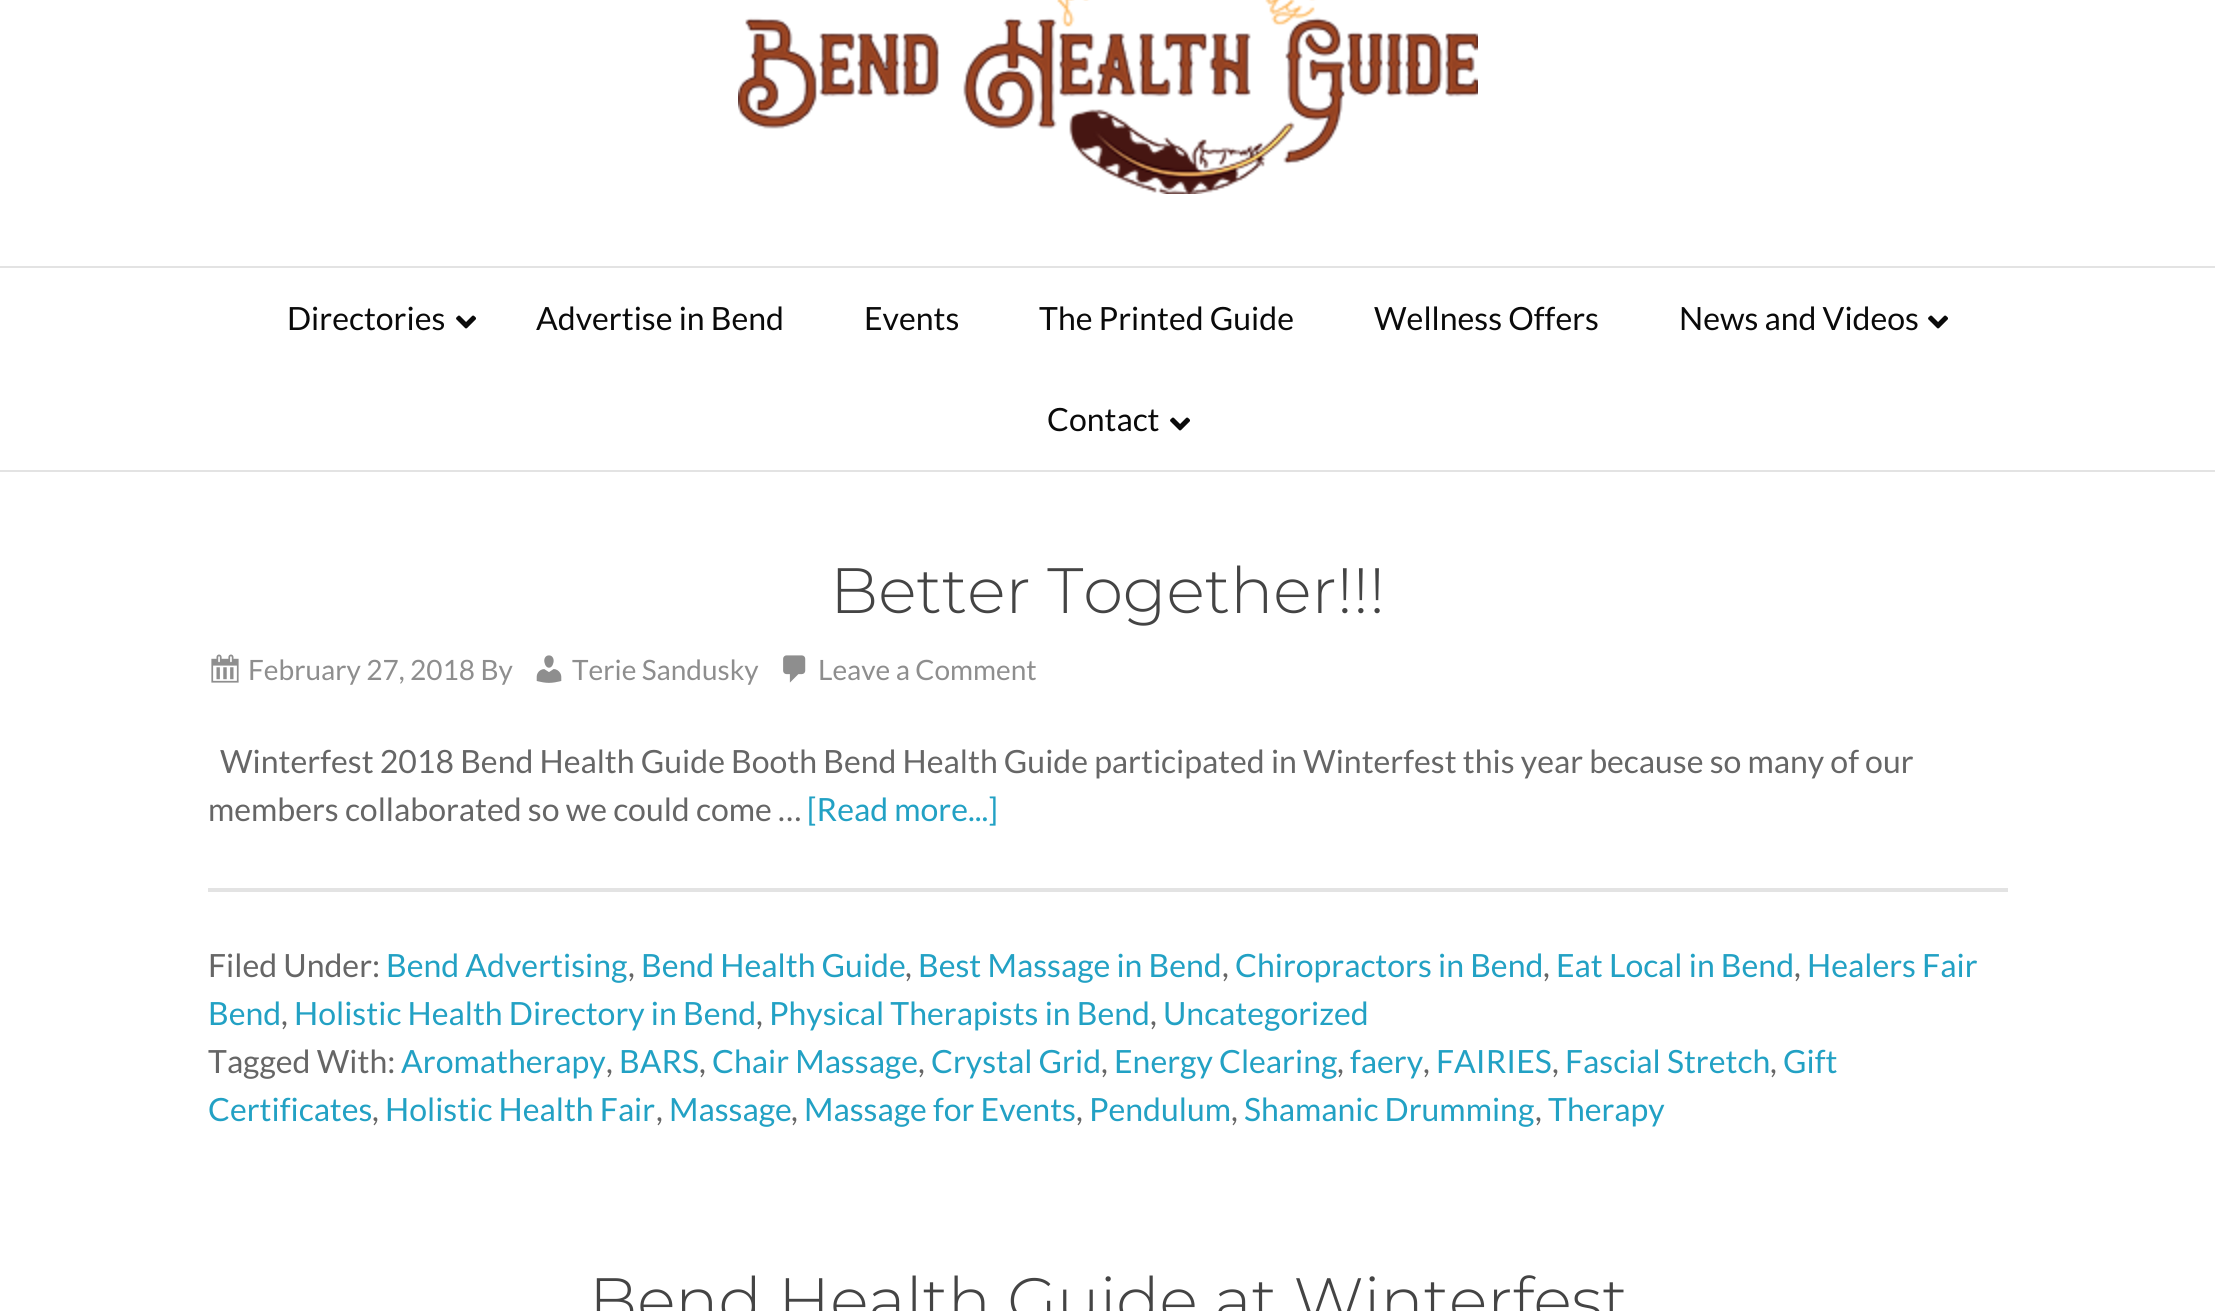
import math
import cairo

surface = cairo.ImageSurface(cairo.FORMAT_RGB24, 2215, 1311)
ctx = cairo.Context(surface)
options = cairo.FontOptions()
options.set_hint_metrics(cairo.HINT_METRICS_OFF)
options.set_hint_style(cairo.HINT_STYLE_NONE)
ctx.set_font_options(options)
ctx.set_miter_limit(4)


def set_color(code):
    ctx.set_source_rgb(*(v / 255 for v in bytes.fromhex(code[-6:])))


def draw_text(x, y, s, family, size, color, bold=False, italic=False):
    ctx.select_font_face(family, cairo.FONT_SLANT_ITALIC if italic else cairo.FONT_SLANT_NORMAL, cairo.FONT_WEIGHT_BOLD if bold else cairo.FONT_WEIGHT_NORMAL)
    ctx.set_font_size(size)
    set_color(color)
    ctx.move_to(x, y)
    ctx.show_text(s)


def fill_rect(x, y, w, h, color):
    set_color(color)
    ctx.rectangle(x, y, w, h)
    ctx.fill()


def draw_image(path, x, y, w, h):
    ctx.save()
    ctx.set_source_surface(cairo.ImageSurface.create_from_png(path), x, y)
    ctx.rectangle(x, y, w, h)
    ctx.fill()
    ctx.restore()


set_color("#ffffff")
ctx.paint()
draw_image("assets/img1.png", 738, 0, 740, 194)
fill_rect(0, 266, 2215, 2, "#e3e3e3")
fill_rect(0, 470, 2215, 2, "#e3e3e3")
draw_text(287, 330, "Directories", "Lato", 32, "#0a0a0a")
draw_image("assets/img2.png", 456, 315, 20, 14)
draw_text(536, 330, "Advertise in Bend", "Lato", 32, "#0a0a0a")
draw_text(864, 330, "Events", "Lato", 32, "#0a0a0a")
draw_text(1039, 330, "The Printed Guide", "Lato", 32, "#0a0a0a")
draw_text(1374, 330, "Wellness Offers", "Lato", 32, "#0a0a0a")
draw_text(1679, 330, "News and Videos", "Lato", 32, "#0a0a0a")
draw_image("assets/img2.png", 1928, 315, 20, 14)
draw_text(1047, 431, "Contact", "Lato", 32, "#0a0a0a")
draw_image("assets/img2.png", 1170, 417, 20, 14)
draw_text(830, 613, "Better Together!!!", "Montserrat Light", 64, "#444444")
draw_image("assets/img3.png", 211, 654, 28, 29)
draw_text(248, 680, "February 27, 2018 By", "Lato", 28, "#8e8e8e")
draw_image("assets/img4.png", 536, 655, 26, 28)
draw_text(572, 680, "Terie Sandusky", "Lato", 28, "#8e8e8e")
draw_image("assets/img5.png", 783, 655, 23, 28)
draw_text(818, 680, "Leave a Comment", "Lato", 28, "#8e8e8e")
draw_text(220, 773, "Winterfest 2018 Bend Health Guide Booth Bend Health Guide participated in Winterfest this year because so many of our", "Lato", 32, "#666666")
draw_text(208, 821, "members collaborated so we could come …", "Lato", 32, "#666666")
draw_text(807, 821, "[Read more...]", "Lato", 32, "#22a1c4")
fill_rect(208, 888, 1800, 4, "#e3e3e3")
draw_text(208, 977, "Filed Under:", "Lato", 32, "#666666")
draw_text(386, 977, "Bend Advertising", "Lato", 32, "#22a1c4")
draw_text(628, 977, ",", "Lato", 32, "#666666")
draw_text(641, 977, "Bend Health Guide", "Lato", 32, "#22a1c4")
draw_text(905, 977, ",", "Lato", 32, "#666666")
draw_text(918, 977, "Best Massage in Bend", "Lato", 32, "#22a1c4")
draw_text(1222, 977, ",", "Lato", 32, "#666666")
draw_text(1235, 977, "Chiropractors in Bend", "Lato", 32, "#22a1c4")
draw_text(1543, 977, ",", "Lato", 32, "#666666")
draw_text(1556, 977, "Eat Local in Bend", "Lato", 32, "#22a1c4")
draw_text(1794, 977, ",", "Lato", 32, "#666666")
draw_text(1807, 977, "Healers Fair", "Lato", 32, "#22a1c4")
draw_text(208, 1025, "Bend", "Lato", 32, "#22a1c4")
draw_text(281, 1025, ",", "Lato", 32, "#666666")
draw_text(294, 1025, "Holistic Health Directory in Bend", "Lato", 32, "#22a1c4")
draw_text(756, 1025, ",", "Lato", 32, "#666666")
draw_text(769, 1025, "Physical Therapists in Bend", "Lato", 32, "#22a1c4")
draw_text(1150, 1025, ",", "Lato", 32, "#666666")
draw_text(1163, 1025, "Uncategorized", "Lato", 32, "#22a1c4")
draw_text(208, 1073, "Tagged With:", "Lato", 32, "#666666")
draw_text(401, 1073, "Aromatherapy", "Lato", 32, "#22a1c4")
draw_text(606, 1073, ",", "Lato", 32, "#666666")
draw_text(619, 1073, "BARS", "Lato", 32, "#22a1c4")
draw_text(699, 1073, ",", "Lato", 32, "#666666")
draw_text(712, 1073, "Chair Massage", "Lato", 32, "#22a1c4")
draw_text(918, 1073, ",", "Lato", 32, "#666666")
draw_text(931, 1073, "Crystal Grid", "Lato", 32, "#22a1c4")
draw_text(1101, 1073, ",", "Lato", 32, "#666666")
draw_text(1114, 1073, "Energy Clearing", "Lato", 32, "#22a1c4")
draw_text(1337, 1073, ",", "Lato", 32, "#666666")
draw_text(1350, 1073, "faery", "Lato", 32, "#22a1c4")
draw_text(1423, 1073, ",", "Lato", 32, "#666666")
draw_text(1436, 1073, "FAIRIES", "Lato", 32, "#22a1c4")
draw_text(1552, 1073, ",", "Lato", 32, "#666666")
draw_text(1565, 1073, "Fascial Stretch", "Lato", 32, "#22a1c4")
draw_text(1770, 1073, ",", "Lato", 32, "#666666")
draw_text(1783, 1073, "Gift", "Lato", 32, "#22a1c4")
draw_text(208, 1121, "Certificates", "Lato", 32, "#22a1c4")
draw_text(372, 1121, ",", "Lato", 32, "#666666")
draw_text(385, 1121, "Holistic Health Fair", "Lato", 32, "#22a1c4")
draw_text(656, 1121, ",", "Lato", 32, "#666666")
draw_text(669, 1121, "Massage", "Lato", 32, "#22a1c4")
draw_text(791, 1121, ",", "Lato", 32, "#666666")
draw_text(804, 1121, "Massage for Events", "Lato", 32, "#22a1c4")
draw_text(1076, 1121, ",", "Lato", 32, "#666666")
draw_text(1089, 1121, "Pendulum", "Lato", 32, "#22a1c4")
draw_text(1231, 1121, ",", "Lato", 32, "#666666")
draw_text(1244, 1121, "Shamanic Drumming", "Lato", 32, "#22a1c4")
draw_text(1535, 1121, ",", "Lato", 32, "#666666")
draw_text(1548, 1121, "Therapy", "Lato", 32, "#22a1c4")
draw_text(589, 1323, "Bend Health Guide at Winterfest", "Montserrat Light", 64, "#444444")
surface.write_to_png("output.png")
